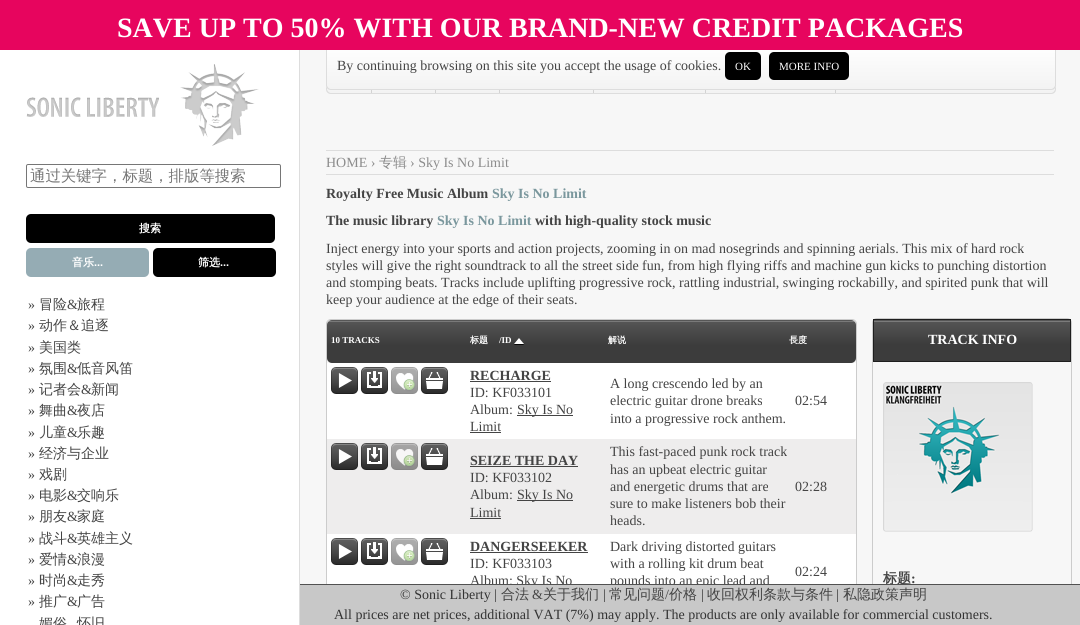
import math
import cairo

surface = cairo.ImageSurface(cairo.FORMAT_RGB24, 1080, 625)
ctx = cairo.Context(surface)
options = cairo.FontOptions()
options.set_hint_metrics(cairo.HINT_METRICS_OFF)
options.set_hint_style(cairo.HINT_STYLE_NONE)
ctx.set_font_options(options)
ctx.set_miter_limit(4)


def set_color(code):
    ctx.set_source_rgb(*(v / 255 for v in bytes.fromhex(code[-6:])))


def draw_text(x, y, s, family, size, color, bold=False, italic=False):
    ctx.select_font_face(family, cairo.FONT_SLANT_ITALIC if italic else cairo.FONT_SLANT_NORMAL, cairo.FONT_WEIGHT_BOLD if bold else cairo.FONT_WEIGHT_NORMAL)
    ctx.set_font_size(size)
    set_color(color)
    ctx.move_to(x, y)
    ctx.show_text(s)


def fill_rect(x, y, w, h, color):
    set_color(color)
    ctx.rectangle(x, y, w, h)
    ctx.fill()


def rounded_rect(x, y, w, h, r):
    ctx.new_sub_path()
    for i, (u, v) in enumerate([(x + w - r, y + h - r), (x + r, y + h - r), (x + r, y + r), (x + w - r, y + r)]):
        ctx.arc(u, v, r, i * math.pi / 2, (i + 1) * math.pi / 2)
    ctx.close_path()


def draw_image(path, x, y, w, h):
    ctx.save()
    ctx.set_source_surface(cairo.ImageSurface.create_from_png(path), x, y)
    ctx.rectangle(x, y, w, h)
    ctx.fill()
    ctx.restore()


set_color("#f7f7f7")
ctx.paint()
ctx.save()
ctx.new_path()
ctx.move_to(326, 50)
ctx.line_to(1056, 50)
ctx.line_to(1056, 89)
ctx.curve_to(1056, 92, 1054, 94, 1051, 94)
ctx.line_to(331, 94)
ctx.curve_to(328, 94, 326, 92, 326, 89)
ctx.close_path()
ctx.clip()
gradient = cairo.LinearGradient(691, 50, 691, 93)
gradient.add_color_stop_rgba(0, 1, 1, 1, 1)
gradient.add_color_stop_rgba(1, 0.953, 0.953, 0.953, 1)
ctx.set_source(gradient)
ctx.rectangle(326, 88, 730, 5)
ctx.fill()
ctx.restore()
set_color("#dddddd")
ctx.set_fill_rule(cairo.FILL_RULE_EVEN_ODD)
ctx.new_path()
ctx.move_to(326, 50)
ctx.line_to(1056, 50)
ctx.line_to(1056, 89)
ctx.curve_to(1056, 92, 1054, 94, 1051, 94)
ctx.line_to(331, 94)
ctx.curve_to(328, 94, 326, 92, 326, 89)
ctx.close_path()
ctx.move_to(327, 50)
ctx.line_to(1055, 50)
ctx.line_to(1055, 89)
ctx.curve_to(1055, 91, 1053, 93, 1051, 93)
ctx.line_to(331, 93)
ctx.curve_to(329, 93, 327, 91, 327, 89)
ctx.close_path()
ctx.fill()
ctx.save()
ctx.set_fill_rule(cairo.FILL_RULE_WINDING)
ctx.new_path()
ctx.move_to(326, 44)
ctx.line_to(1056, 44)
ctx.line_to(1056, 85)
ctx.curve_to(1056, 88, 1054, 90, 1051, 90)
ctx.line_to(331, 90)
ctx.curve_to(328, 90, 326, 88, 326, 85)
ctx.close_path()
ctx.clip()
gradient = cairo.LinearGradient(691, 44, 691, 89)
gradient.add_color_stop_rgba(0, 1, 1, 1, 1)
gradient.add_color_stop_rgba(1, 0.953, 0.953, 0.953, 1)
ctx.set_source(gradient)
ctx.rectangle(326, 50, 730, 39)
ctx.fill()
ctx.restore()
ctx.new_path()
ctx.move_to(326, 44)
ctx.line_to(1056, 44)
ctx.line_to(1056, 85)
ctx.curve_to(1056, 88, 1054, 90, 1051, 90)
ctx.line_to(331, 90)
ctx.curve_to(328, 90, 326, 88, 326, 85)
ctx.close_path()
ctx.move_to(327, 44)
ctx.line_to(1055, 44)
ctx.line_to(1055, 85)
ctx.curve_to(1055, 87, 1053, 89, 1051, 89)
ctx.line_to(331, 89)
ctx.curve_to(329, 89, 327, 87, 327, 85)
ctx.close_path()
ctx.fill()
fill_rect(0, 0, 1080, 50, "#e7055e")
draw_text(117, 37, "SAVE UP TO 50% WITH OUR BRAND-NEW CREDIT PACKAGES", "Liberation Serif", 28, "#ffffff", bold=True)
fill_rect(0, 50, 299, 575, "#ffffff")
fill_rect(299, 50, 1, 575, "#dddddd")
draw_image("assets/img1.png", 26, 64, 233, 82)
rounded_rect(26.5, 164.5, 254, 23, 1.5)
set_color("#767676")
ctx.set_line_width(1)
ctx.stroke()
draw_text(30, 181, "通过关键字，标题，排版等搜索", "WenQuanYi Zen Hei Medium", 15.4, "#757575")
set_color("#000000")
rounded_rect(26, 214, 249, 29, 5)
ctx.fill()
draw_text(139, 232, "搜索", "WenQuanYi Zen Hei", 11, "#ffffff", bold=True)
set_color("#95acb4")
rounded_rect(26, 248, 123, 29, 5)
ctx.fill()
draw_text(72, 266, "音乐", "WenQuanYi Zen Hei", 11, "#ffffff", bold=True)
draw_text(94, 266, "...", "Liberation Sans", 11, "#ffffff", bold=True)
set_color("#000000")
rounded_rect(153, 248, 123, 29, 5)
ctx.fill()
draw_text(198, 266, "筛选", "WenQuanYi Zen Hei", 11, "#ffffff", bold=True)
draw_text(220, 266, "...", "Liberation Sans", 11, "#ffffff", bold=True)
draw_text(28, 309, "»", "Liberation Serif", 14, "#444444")
draw_text(39, 309, "冒险", "WenQuanYi Zen Hei Medium", 14, "#444444")
draw_text(67, 309, "&", "Liberation Serif", 14, "#444444")
draw_text(77, 309, "旅程", "WenQuanYi Zen Hei Medium", 14, "#444444")
draw_text(28, 330, "»", "Liberation Serif", 14, "#444444")
draw_text(39, 330, "动作＆追逐", "WenQuanYi Zen Hei Medium", 14, "#444444")
draw_text(28, 352, "»", "Liberation Serif", 14, "#444444")
draw_text(39, 352, "美国类", "WenQuanYi Zen Hei Medium", 14, "#444444")
draw_text(28, 373, "»", "Liberation Serif", 14, "#444444")
draw_text(39, 373, "氛围", "WenQuanYi Zen Hei Medium", 14, "#444444")
draw_text(67, 373, "&", "Liberation Serif", 14, "#444444")
draw_text(77, 373, "低音风笛", "WenQuanYi Zen Hei Medium", 14, "#444444")
draw_text(28, 394, "»", "Liberation Serif", 14, "#444444")
draw_text(39, 394, "记者会", "WenQuanYi Zen Hei Medium", 14, "#444444")
draw_text(81, 394, "&", "Liberation Serif", 14, "#444444")
draw_text(91, 394, "新闻", "WenQuanYi Zen Hei Medium", 14, "#444444")
draw_text(28, 415, "»", "Liberation Serif", 14, "#444444")
draw_text(39, 415, "舞曲", "WenQuanYi Zen Hei Medium", 14, "#444444")
draw_text(67, 415, "&", "Liberation Serif", 14, "#444444")
draw_text(77, 415, "夜店", "WenQuanYi Zen Hei Medium", 14, "#444444")
draw_text(28, 437, "»", "Liberation Serif", 14, "#444444")
draw_text(39, 437, "儿童", "WenQuanYi Zen Hei Medium", 14, "#444444")
draw_text(67, 437, "&", "Liberation Serif", 14, "#444444")
draw_text(77, 437, "乐趣", "WenQuanYi Zen Hei Medium", 14, "#444444")
draw_text(28, 458, "»", "Liberation Serif", 14, "#444444")
draw_text(39, 458, "经济与企业", "WenQuanYi Zen Hei Medium", 14, "#444444")
draw_text(28, 479, "»", "Liberation Serif", 14, "#444444")
draw_text(39, 479, "戏剧", "WenQuanYi Zen Hei Medium", 14, "#444444")
draw_text(28, 500, "»", "Liberation Serif", 14, "#444444")
draw_text(39, 500, "电影", "WenQuanYi Zen Hei Medium", 14, "#444444")
draw_text(67, 500, "&", "Liberation Serif", 14, "#444444")
draw_text(77, 500, "交响乐", "WenQuanYi Zen Hei Medium", 14, "#444444")
draw_text(28, 521, "»", "Liberation Serif", 14, "#444444")
draw_text(39, 521, "朋友", "WenQuanYi Zen Hei Medium", 14, "#444444")
draw_text(67, 521, "&", "Liberation Serif", 14, "#444444")
draw_text(77, 521, "家庭", "WenQuanYi Zen Hei Medium", 14, "#444444")
draw_text(28, 543, "»", "Liberation Serif", 14, "#444444")
draw_text(39, 543, "战斗", "WenQuanYi Zen Hei Medium", 14, "#444444")
draw_text(67, 543, "&", "Liberation Serif", 14, "#444444")
draw_text(77, 543, "英雄主义", "WenQuanYi Zen Hei Medium", 14, "#444444")
draw_text(28, 564, "»", "Liberation Serif", 14, "#444444")
draw_text(39, 564, "爱情", "WenQuanYi Zen Hei Medium", 14, "#444444")
draw_text(67, 564, "&", "Liberation Serif", 14, "#444444")
draw_text(77, 564, "浪漫", "WenQuanYi Zen Hei Medium", 14, "#444444")
draw_text(28, 585, "»", "Liberation Serif", 14, "#444444")
draw_text(39, 585, "时尚", "WenQuanYi Zen Hei Medium", 14, "#444444")
draw_text(67, 585, "&", "Liberation Serif", 14, "#444444")
draw_text(77, 585, "走秀", "WenQuanYi Zen Hei Medium", 14, "#444444")
draw_text(28, 606, "»", "Liberation Serif", 14, "#444444")
draw_text(39, 606, "推广", "WenQuanYi Zen Hei Medium", 14, "#444444")
draw_text(67, 606, "&", "Liberation Serif", 14, "#444444")
draw_text(77, 606, "广告", "WenQuanYi Zen Hei Medium", 14, "#444444")
draw_text(39, 628, "媚俗", "WenQuanYi Zen Hei Medium", 14, "#444444")
draw_text(77, 628, "怀旧", "WenQuanYi Zen Hei Medium", 14, "#444444")
fill_rect(371, 90, 1, 3, "#d3d3d3")
fill_rect(435, 90, 1, 3, "#d3d3d3")
fill_rect(499, 90, 1, 3, "#d3d3d3")
fill_rect(593, 90, 1, 3, "#d3d3d3")
fill_rect(705, 90, 1, 3, "#d3d3d3")
fill_rect(835, 90, 1, 3, "#d3d3d3")
draw_text(337, 70, "By continuing browsing on this site you accept the usage of cookies.", "Liberation Serif", 14, "#444444")
set_color("#000000")
rounded_rect(725, 52, 36, 28, 5)
ctx.fill()
draw_text(735, 70, "OK", "Liberation Serif", 11, "#ffffff")
set_color("#000000")
rounded_rect(769, 52, 80, 28, 5)
ctx.fill()
draw_text(779, 70, "MORE INFO", "Liberation Serif", 11, "#ffffff")
fill_rect(326, 150, 728, 1, "#dddddd")
fill_rect(326, 174, 728, 1, "#dddddd")
draw_text(326, 167, "HOME ›", "Liberation Serif", 14, "#8c8c8c")
draw_text(379, 167, "专辑", "WenQuanYi Zen Hei Medium", 14, "#8c8c8c")
draw_text(410, 167, "› Sky Is No Limit", "Liberation Serif", 14, "#8c8c8c")
draw_text(326, 198, "Royalty Free Music Album", "Liberation Serif", 14, "#444444", bold=True)
draw_text(492, 198, "Sky Is No Limit", "Liberation Serif", 14, "#7a979d", bold=True)
draw_text(326, 225, "The music library", "Liberation Serif", 14, "#444444", bold=True)
draw_text(437, 225, "Sky Is No Limit", "Liberation Serif", 14, "#7a979d", bold=True)
draw_text(535, 225, "with high-quality stock music", "Liberation Serif", 14, "#444444", bold=True)
draw_text(326, 253, "Inject energy into your sports and action projects, zooming in on mad nosegrinds and spinning aerials. This mix of hard rock", "Liberation Serif", 14, "#444444")
draw_text(326, 270, "styles will give the right soundtrack to all the street side fun, from high flying riffs and machine gun kicks to punching distortion", "Liberation Serif", 14, "#444444")
draw_text(326, 287, "and stomping beats. Tracks include uplifting progressive rock, rattling industrial, swinging rockabilly, and spirited punk that will", "Liberation Serif", 14, "#444444")
draw_text(326, 304, "keep your audience at the edge of their seats.", "Liberation Serif", 14, "#444444")
rounded_rect(326.5, 319.5, 530, 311, 4.5)
set_color("#cccccc")
ctx.stroke()
gradient = cairo.LinearGradient(327, 363, 327, 320)
gradient.add_color_stop_rgba(0.4, 0.235, 0.235, 0.235, 1)
gradient.add_color_stop_rgba(0.95, 0.329, 0.329, 0.329, 1)
gradient.add_color_stop_rgba(0.96, 0.502, 0.502, 0.502, 1)
gradient.add_color_stop_rgba(0.99, 0.329, 0.329, 0.329, 1)
ctx.set_source(gradient)
rounded_rect(327, 320, 529, 43, 5)
ctx.fill()
draw_text(331, 343, "10 TRACKS", "Liberation Serif", 9, "#ffffff", bold=True)
draw_text(470, 343, "标题", "WenQuanYi Zen Hei", 9, "#ffffff", bold=True)
draw_text(499, 343, "/ID", "Liberation Serif", 9, "#ffffff", bold=True)
draw_image("assets/img2.png", 514, 338, 10, 7)
draw_text(608, 343, "解说", "WenQuanYi Zen Hei", 9, "#ffffff", bold=True)
draw_text(789, 343, "長度", "WenQuanYi Zen Hei", 9, "#ffffff", bold=True)
fill_rect(327, 363, 529, 221, "#ffffff")
draw_image("assets/img3.png", 331, 367, 27, 27)
draw_image("assets/img4.png", 361, 367, 27, 27)
draw_image("assets/img5.png", 391, 367, 27, 27)
draw_image("assets/img6.png", 421, 367, 27, 27)
draw_text(470, 380, "RECHARGE", "Liberation Serif", 14, "#444444", bold=True)
fill_rect(470, 381, 81, 1, "#444444")
draw_text(470, 397, "ID: KF033101", "Liberation Serif", 14, "#444444")
draw_text(470, 414, "Album:", "Liberation Serif", 14, "#444444")
fill_rect(517, 415, 56, 1, "#444444")
draw_text(517, 414, "Sky Is No", "Liberation Serif", 14, "#444444")
draw_text(470, 431, "Limit", "Liberation Serif", 14, "#444444")
fill_rect(470, 432, 31, 1, "#444444")
draw_text(610, 388, "A long crescendo led by an", "Liberation Serif", 14, "#444444")
draw_text(610, 405, "electric guitar drone breaks", "Liberation Serif", 14, "#444444")
draw_text(610, 423, "into a progressive rock anthem.", "Liberation Serif", 14, "#444444")
draw_text(795, 405, "02:54", "Liberation Serif", 14, "#444444")
fill_rect(327, 439, 529, 95, "#eeeded")
draw_image("assets/img7.png", 331, 443, 27, 27)
draw_image("assets/img8.png", 361, 443, 27, 27)
draw_image("assets/img9.png", 391, 443, 27, 27)
draw_image("assets/img10.png", 421, 443, 27, 27)
draw_text(470, 465, "SEIZE THE DAY", "Liberation Serif", 14, "#444444", bold=True)
fill_rect(470, 466, 108, 1, "#444444")
draw_text(470, 482, "ID: KF033102", "Liberation Serif", 14, "#444444")
draw_text(470, 499, "Album:", "Liberation Serif", 14, "#444444")
fill_rect(517, 500, 56, 1, "#444444")
draw_text(517, 499, "Sky Is No", "Liberation Serif", 14, "#444444")
draw_text(470, 517, "Limit", "Liberation Serif", 14, "#444444")
fill_rect(470, 518, 31, 1, "#444444")
draw_text(610, 456, "This fast-paced punk rock track", "Liberation Serif", 14, "#444444")
draw_text(610, 474, "has an upbeat electric guitar", "Liberation Serif", 14, "#444444")
draw_text(610, 491, "and energetic drums that are", "Liberation Serif", 14, "#444444")
draw_text(610, 508, "sure to make listeners bob their", "Liberation Serif", 14, "#444444")
draw_text(610, 525, "heads.", "Liberation Serif", 14, "#444444")
draw_text(795, 491, "02:28", "Liberation Serif", 14, "#444444")
draw_image("assets/img3.png", 331, 538, 27, 27)
draw_image("assets/img4.png", 361, 538, 27, 27)
draw_image("assets/img5.png", 391, 538, 27, 27)
draw_image("assets/img6.png", 421, 538, 27, 27)
draw_text(470, 551, "DANGERSEEKER", "Liberation Serif", 14, "#444444", bold=True)
fill_rect(470, 552, 118, 1, "#444444")
draw_text(470, 568, "ID: KF033103", "Liberation Serif", 14, "#444444")
draw_text(470, 585, "Album: Sky Is No", "Liberation Serif", 14, "#444444")
draw_text(610, 551, "Dark driving distorted guitars", "Liberation Serif", 14, "#444444")
draw_text(610, 568, "with a rolling kit drum beat", "Liberation Serif", 14, "#444444")
draw_text(610, 585, "pounds into an epic lead and", "Liberation Serif", 14, "#444444")
draw_text(795, 576, "02:24", "Liberation Serif", 14, "#444444")
rounded_rect(872.5, 318.5, 199, 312, 4.5)
set_color("#cccccc")
ctx.stroke()
gradient = cairo.LinearGradient(874, 361, 874, 320)
gradient.add_color_stop_rgba(0.4, 0.235, 0.235, 0.235, 1)
gradient.add_color_stop_rgba(0.95, 0.329, 0.329, 0.329, 1)
gradient.add_color_stop_rgba(0.96, 0.502, 0.502, 0.502, 1)
gradient.add_color_stop_rgba(0.99, 0.329, 0.329, 0.329, 1)
ctx.set_source(gradient)
ctx.rectangle(874, 320, 196, 41)
ctx.fill()
ctx.rectangle(873.5, 319.5, 197, 42)
set_color("#1e1e1e")
ctx.stroke()
draw_text(928, 344, "TRACK INFO", "Liberation Serif", 14, "#ffffff", bold=True)
draw_image("assets/img11.png", 883, 382, 150, 150)
draw_text(883, 583, "标题", "WenQuanYi Zen Hei", 14, "#444444", bold=True)
draw_text(911, 583, ":", "Liberation Serif", 14, "#444444", bold=True)
fill_rect(300, 585, 780, 40, "#c8c8c8")
fill_rect(300, 584, 780, 1, "#515151")
draw_text(400, 599, "© Sonic Liberty |", "Liberation Serif", 14, "#333333")
draw_text(501, 599, "合法", "WenQuanYi Zen Hei Medium", 14, "#444444")
draw_text(532, 599, "&", "Liberation Serif", 14, "#444444")
draw_text(543, 599, "关于我们", "WenQuanYi Zen Hei Medium", 14, "#444444")
draw_text(603, 599, "|", "Liberation Serif", 14, "#333333")
draw_text(609, 599, "常见问题", "WenQuanYi Zen Hei Medium", 14, "#444444")
draw_text(665, 599, "/", "Liberation Serif", 14, "#444444")
draw_text(669, 599, "价格", "WenQuanYi Zen Hei Medium", 14, "#444444")
draw_text(701, 599, "|", "Liberation Serif", 14, "#333333")
draw_text(707, 599, "收回权利条款与条件", "WenQuanYi Zen Hei Medium", 14, "#444444")
draw_text(836, 599, "|", "Liberation Serif", 14, "#333333")
draw_text(843, 599, "私隐政策声明", "WenQuanYi Zen Hei Medium", 14, "#444444")
draw_text(334, 619, "All prices are net prices, additional VAT (7%) may apply. The products are only available for commercial customers.", "Liberation Serif", 14, "#333333")
surface.write_to_png("output.png")
